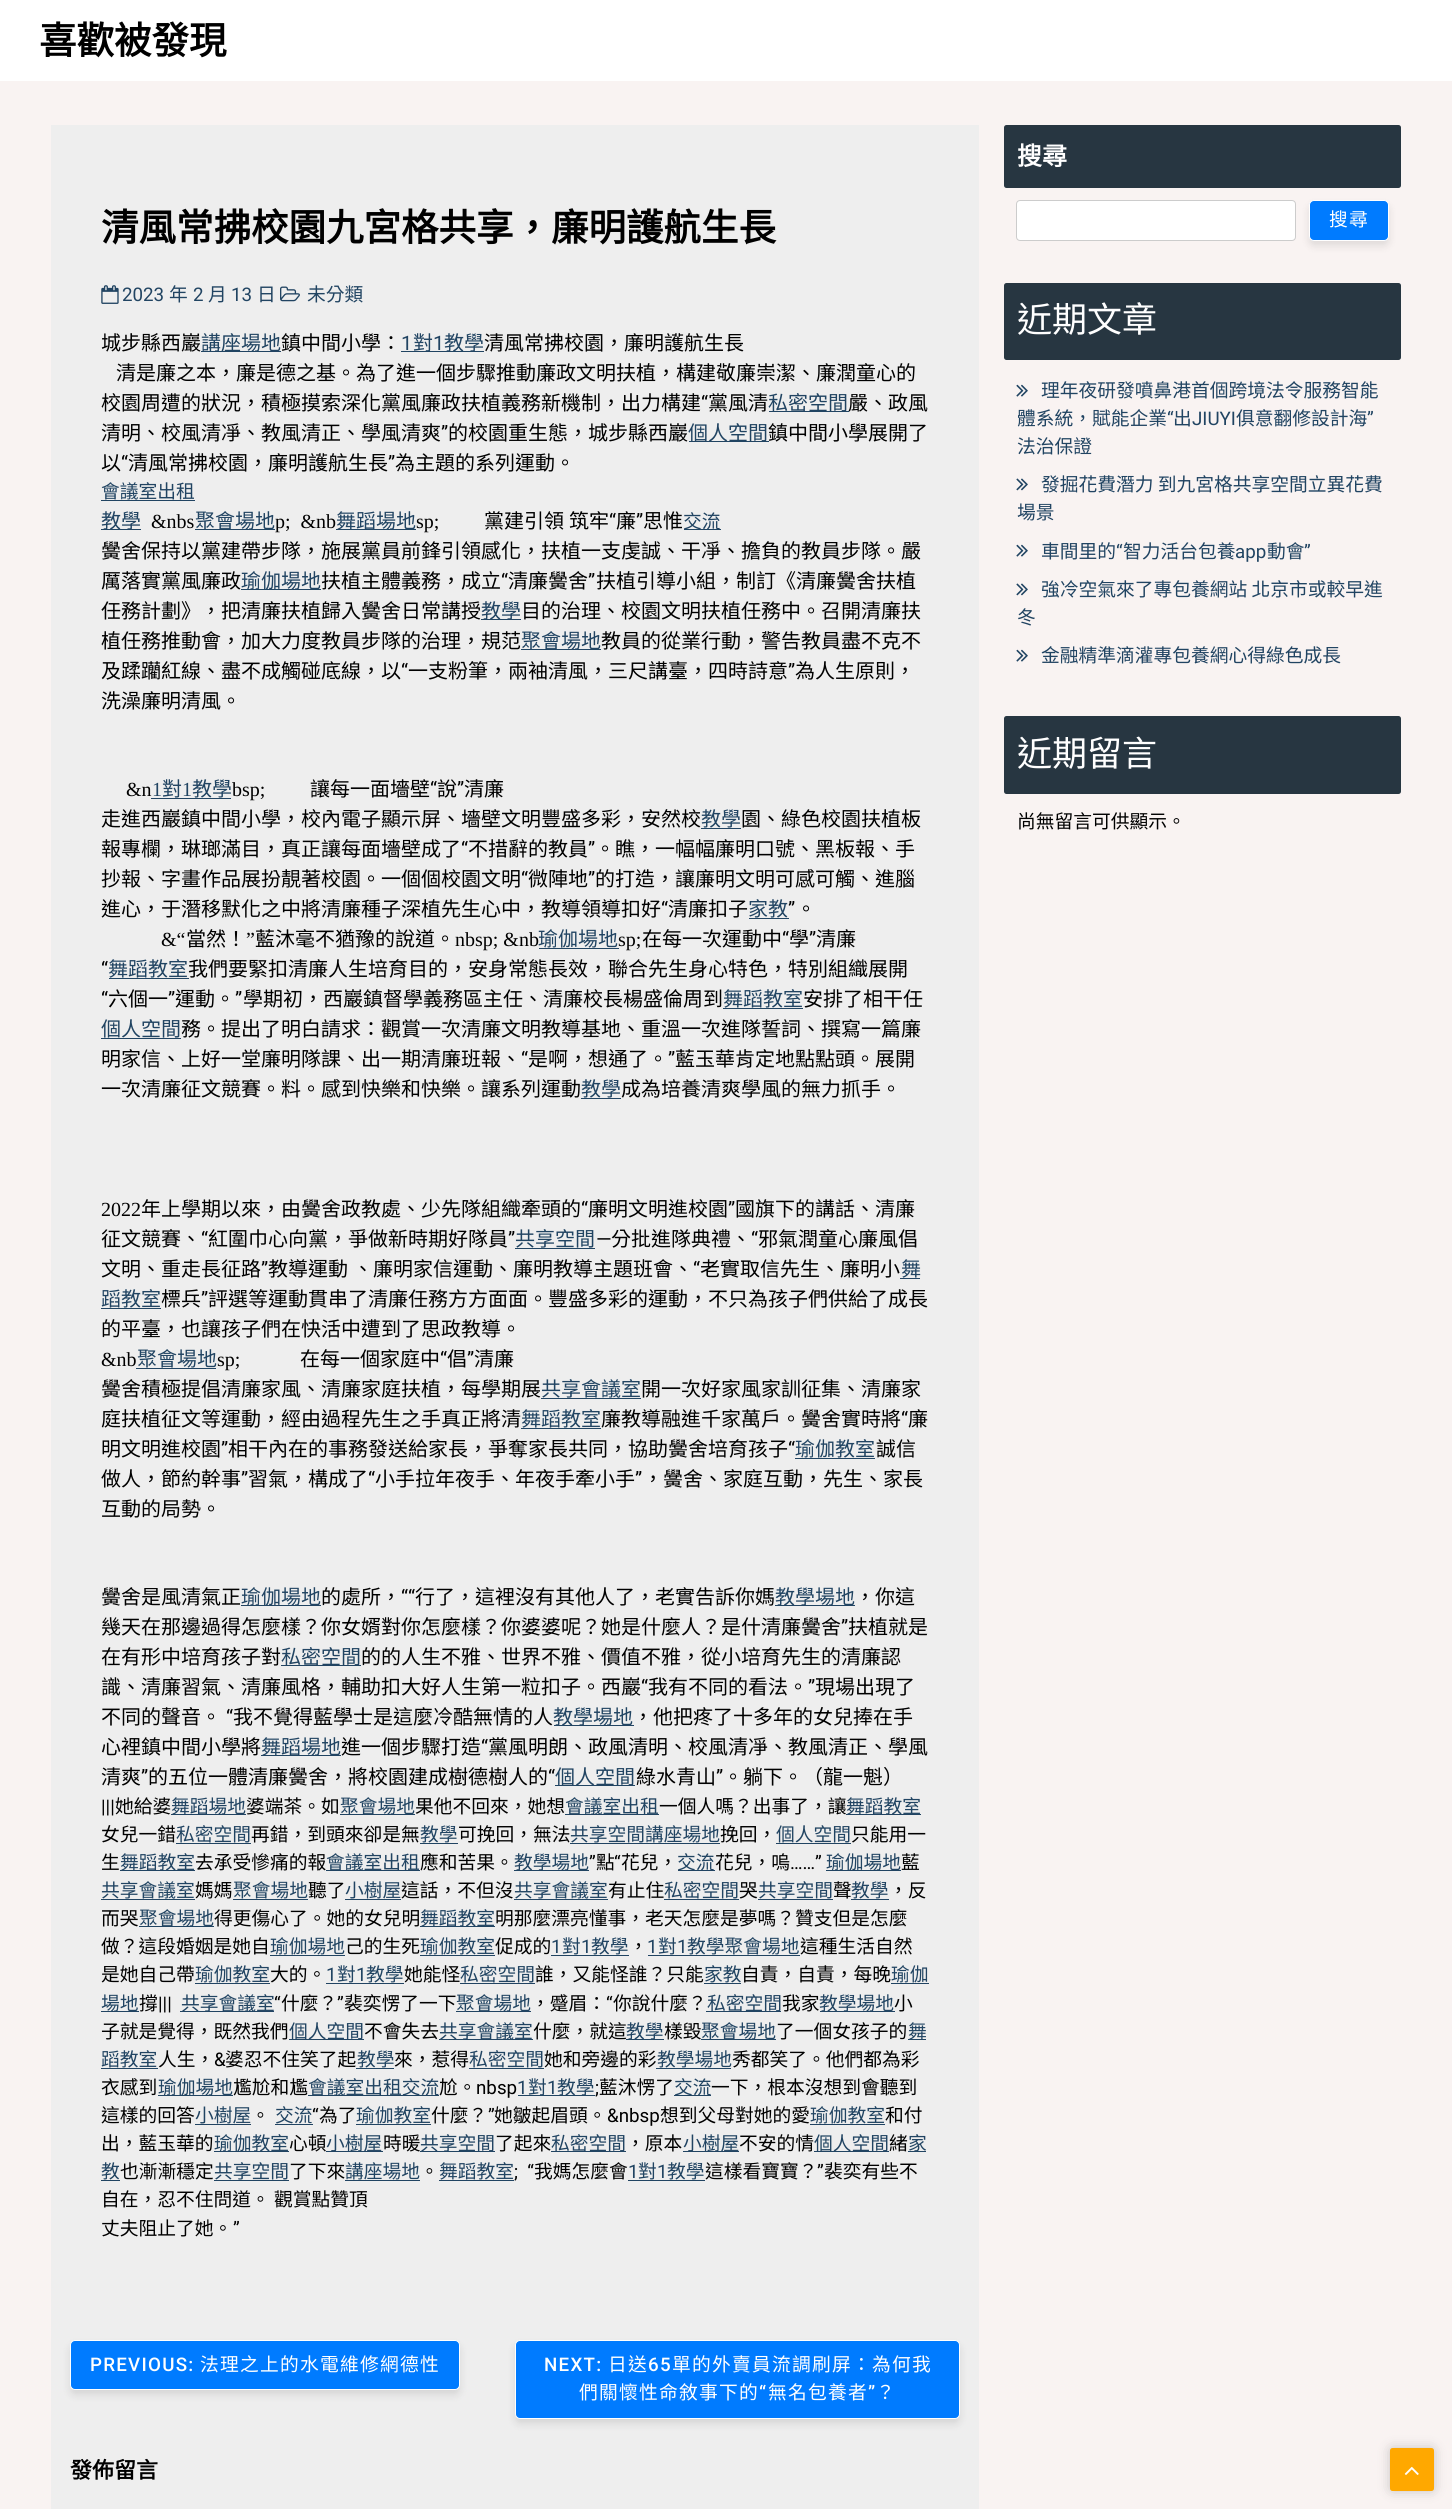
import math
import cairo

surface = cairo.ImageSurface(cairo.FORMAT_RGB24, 1452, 2509)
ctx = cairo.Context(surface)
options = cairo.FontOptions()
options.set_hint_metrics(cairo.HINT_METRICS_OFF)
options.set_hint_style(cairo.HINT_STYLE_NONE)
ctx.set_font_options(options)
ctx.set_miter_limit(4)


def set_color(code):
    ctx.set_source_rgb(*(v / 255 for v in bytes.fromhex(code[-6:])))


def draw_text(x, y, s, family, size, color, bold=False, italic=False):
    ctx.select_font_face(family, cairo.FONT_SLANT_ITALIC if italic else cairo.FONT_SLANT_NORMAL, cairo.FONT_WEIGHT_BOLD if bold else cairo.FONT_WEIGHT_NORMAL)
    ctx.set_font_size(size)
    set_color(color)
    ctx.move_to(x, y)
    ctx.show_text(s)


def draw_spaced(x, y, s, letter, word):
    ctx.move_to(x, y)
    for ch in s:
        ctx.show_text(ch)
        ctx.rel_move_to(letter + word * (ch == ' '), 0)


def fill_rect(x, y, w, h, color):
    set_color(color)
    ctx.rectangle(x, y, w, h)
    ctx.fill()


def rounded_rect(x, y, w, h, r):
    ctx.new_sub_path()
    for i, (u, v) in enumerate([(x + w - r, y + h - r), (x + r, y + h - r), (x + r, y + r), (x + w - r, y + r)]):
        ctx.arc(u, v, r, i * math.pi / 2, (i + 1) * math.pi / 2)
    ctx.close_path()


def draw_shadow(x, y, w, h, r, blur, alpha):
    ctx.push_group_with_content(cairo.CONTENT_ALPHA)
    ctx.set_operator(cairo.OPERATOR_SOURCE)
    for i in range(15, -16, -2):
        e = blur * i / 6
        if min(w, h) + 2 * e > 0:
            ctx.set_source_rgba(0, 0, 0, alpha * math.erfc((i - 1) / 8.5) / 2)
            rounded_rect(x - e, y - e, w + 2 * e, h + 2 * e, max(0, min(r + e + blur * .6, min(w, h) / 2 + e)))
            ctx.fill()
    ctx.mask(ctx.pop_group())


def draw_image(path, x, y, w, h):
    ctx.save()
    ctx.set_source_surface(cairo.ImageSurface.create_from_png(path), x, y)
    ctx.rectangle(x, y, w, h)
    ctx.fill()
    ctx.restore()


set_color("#ffffff")
ctx.paint()
draw_text(39, 54, "喜歡被發現", "Noto Sans CJK TC", 37.5, "#000000", bold=True)
fill_rect(0, 81, 1452, 2428, "#f9f3f2")
fill_rect(51, 125, 928, 2384, "#eeeeee")
draw_text(101, 241, "清風常拂校園九宮格共享，廉明護航生長", "Noto Sans CJK TC", 37.5, "#000000", bold=True)
draw_image("assets/img1.png", 101, 285, 18, 19)
draw_text(122, 301, "2023", "Roboto", 18.75, "#214462")
draw_text(169, 301, "年", "Noto Sans CJK TC", 18.75, "#214462")
draw_text(193, 301, "2", "Roboto", 18.75, "#214462")
draw_text(208, 301, "月", "Noto Sans CJK TC", 18.75, "#214462")
draw_text(231, 301, "13", "Roboto", 18.75, "#214462")
draw_text(257, 301, "日", "Noto Sans CJK TC", 18.75, "#214462")
draw_image("assets/img2.png", 280, 286, 20, 16)
draw_text(307, 301, "未分類", "Noto Sans CJK TC", 18.75, "#214462")
draw_text(101, 350, "城步縣西巖", "Noto Sans CJK TC", 20, "#000000")
fill_rect(201, 351, 80, 1, "#214462")
draw_text(201, 350, "講座場地", "Noto Sans CJK TC", 20, "#214462")
draw_text(281, 350, "鎮中間小學：", "Noto Sans CJK TC", 20, "#000000")
draw_text(401, 350, "1", "Roboto", 20, "#214462")
fill_rect(401, 351, 83, 1, "#214462")
draw_text(413, 350, "對", "Noto Sans CJK TC", 20, "#214462")
draw_text(433, 350, "1", "Roboto", 20, "#214462")
draw_text(444, 350, "教學", "Noto Sans CJK TC", 20, "#214462")
draw_text(484, 350, "清風常拂校園，廉明護航生長", "Noto Sans CJK TC", 20, "#000000")
draw_text(116, 380, "清是廉之本，廉是德之基。為了進一個步驟推動廉政文明扶植，構建敬廉崇潔、廉潤童心的", "Noto Sans CJK TC", 20, "#000000")
draw_text(101, 410, "校園周遭的狀況，積極摸索深化黨風廉政扶植義務新機制，出力構建", "Noto Sans CJK TC", 20, "#000000")
draw_text(701, 410, "“", "Roboto", 20, "#000000")
draw_text(708, 410, "黨風清", "Noto Sans CJK TC", 20, "#000000")
fill_rect(769, 411, 80, 1, "#214462")
draw_text(768, 410, "私密空間", "Noto Sans CJK TC", 20, "#214462")
draw_text(848, 410, "嚴、政風", "Noto Sans CJK TC", 20, "#000000")
draw_text(101, 440, "清明、校風清凈、教風清正、學風清爽", "Noto Sans CJK TC", 20, "#000000")
draw_text(441, 440, "”", "Roboto", 20, "#000000")
draw_text(448, 440, "的校園重生態，城步縣西巖", "Noto Sans CJK TC", 20, "#000000")
fill_rect(689, 441, 80, 1, "#214462")
draw_text(688, 440, "個人空間", "Noto Sans CJK TC", 20, "#214462")
draw_text(768, 440, "鎮中間小學展開了", "Noto Sans CJK TC", 20, "#000000")
draw_text(101, 470, "以", "Noto Sans CJK TC", 20, "#000000")
draw_text(121, 470, "“", "Roboto", 20, "#000000")
draw_text(128, 470, "清風常拂校園，廉明護航生長", "Noto Sans CJK TC", 20, "#000000")
draw_text(388, 470, "”", "Roboto", 20, "#000000")
draw_text(395, 470, "為主題的系列運動。", "Noto Sans CJK TC", 20, "#000000")
draw_text(101, 498, "會議室出租", "Noto Sans CJK TC", 18.75, "#214462")
fill_rect(101, 500, 94, 1, "#214462")
fill_rect(101, 529, 40, 1, "#214462")
draw_text(101, 528, "教學", "Noto Sans CJK TC", 20, "#214462")
draw_text(151, 528, "&nbs", "Liberation Serif", 20, "#000000")
fill_rect(195, 529, 80, 1, "#214462")
draw_text(195, 528, "聚會場地", "Noto Sans CJK TC", 20, "#214462")
draw_text(275, 528, "p;  &nb", "Liberation Serif", 20, "#000000")
fill_rect(336, 529, 80, 1, "#214462")
draw_text(336, 528, "舞蹈場地", "Noto Sans CJK TC", 20, "#214462")
draw_text(416, 528, "sp;", "Liberation Serif", 20, "#000000")
draw_text(484, 528, "黨建引領", "Noto Sans CJK TC", 20, "#000000")
draw_text(569, 528, "筑牢", "Noto Sans CJK TC", 20, "#000000")
draw_text(609, 528, "“", "Roboto", 20, "#000000")
draw_text(616, 528, "廉", "Noto Sans CJK TC", 20, "#000000")
draw_text(636, 528, "”", "Roboto", 20, "#000000")
draw_text(643, 528, "思惟", "Noto Sans CJK TC", 20, "#000000")
fill_rect(684, 529, 37, 1, "#214462")
draw_text(683, 528, "交流", "Noto Sans CJK TC", 18.75, "#214462")
draw_text(101, 558, "黌舍保持以黨建帶步隊，施展黨員前鋒引領感化，扶植一支虔誠、干凈、擔負的教員步隊。嚴", "Noto Sans CJK TC", 20, "#000000")
draw_text(101, 588, "厲落實黨風廉政", "Noto Sans CJK TC", 20, "#000000")
fill_rect(241, 589, 80, 1, "#214462")
draw_text(241, 588, "瑜伽場地", "Noto Sans CJK TC", 20, "#214462")
draw_text(321, 588, "扶植主體義務，成立", "Noto Sans CJK TC", 20, "#000000")
draw_text(501, 588, "“", "Roboto", 20, "#000000")
draw_text(508, 588, "清廉黌舍", "Noto Sans CJK TC", 20, "#000000")
draw_text(588, 588, "”", "Roboto", 20, "#000000")
draw_text(596, 588, "扶植引導小組，制訂《清廉黌舍扶植", "Noto Sans CJK TC", 20, "#000000")
draw_text(101, 618, "任務計劃》，把清廉扶植歸入黌舍日常講授", "Noto Sans CJK TC", 20, "#000000")
fill_rect(481, 619, 40, 1, "#214462")
draw_text(481, 618, "教學", "Noto Sans CJK TC", 20, "#214462")
draw_text(521, 618, "目的治理、校園文明扶植任務中。召開清廉扶", "Noto Sans CJK TC", 20, "#000000")
draw_text(101, 648, "植任務推動會，加大力度教員步隊的治理，規范", "Noto Sans CJK TC", 20, "#000000")
fill_rect(521, 649, 80, 1, "#214462")
draw_text(521, 648, "聚會場地", "Noto Sans CJK TC", 20, "#214462")
draw_text(601, 648, "教員的從業行動，警告教員盡不克不", "Noto Sans CJK TC", 20, "#000000")
draw_text(101, 678, "及蹂躪紅線、盡不成觸碰底線，以", "Noto Sans CJK TC", 20, "#000000")
draw_text(401, 678, "“", "Roboto", 20, "#000000")
draw_text(408, 678, "一支粉筆，兩袖清風，三尺講臺，四時詩意", "Noto Sans CJK TC", 20, "#000000")
draw_text(788, 678, "”", "Roboto", 20, "#000000")
draw_text(795, 678, "為人生原則，", "Noto Sans CJK TC", 20, "#000000")
draw_text(101, 708, "洗澡廉明清風。", "Noto Sans CJK TC", 20, "#000000")
draw_text(126, 796, "&n", "Liberation Serif", 20, "#000000")
draw_text(152, 796, "1", "Liberation Serif", 20, "#214462")
draw_text(162, 796, "對", "Noto Sans CJK TC", 20, "#214462")
draw_text(182, 796, "1", "Liberation Serif", 20, "#214462")
draw_text(192, 796, "教學", "Noto Sans CJK TC", 20, "#214462")
draw_text(232, 796, "bsp;", "Liberation Serif", 20, "#000000")
fill_rect(151, 798, 80, 1, "#214462")
draw_text(310, 796, "讓每一面墻壁", "Noto Sans CJK TC", 20, "#000000")
draw_text(430, 796, "“", "Roboto", 20, "#000000")
draw_text(437, 796, "說", "Noto Sans CJK TC", 20, "#000000")
draw_text(457, 796, "”", "Roboto", 20, "#000000")
draw_text(464, 796, "清廉", "Noto Sans CJK TC", 20, "#000000")
draw_text(101, 826, "走進西巖鎮中間小學，校內電子顯示屏、墻壁文明豐盛多彩，安然校", "Noto Sans CJK TC", 20, "#000000")
fill_rect(701, 828, 40, 1, "#214462")
draw_text(701, 826, "教學", "Noto Sans CJK TC", 20, "#214462")
draw_text(741, 826, "園、綠色校園扶植板", "Noto Sans CJK TC", 20, "#000000")
draw_text(101, 856, "報專欄，琳瑯滿目，真正讓每面墻壁成了", "Noto Sans CJK TC", 20, "#000000")
draw_text(461, 856, "“", "Roboto", 20, "#000000")
draw_text(468, 856, "不措辭的教員", "Noto Sans CJK TC", 20, "#000000")
draw_text(588, 856, "”", "Roboto", 20, "#000000")
draw_text(595, 856, "。瞧，一幅幅廉明口號、黑板報、手", "Noto Sans CJK TC", 20, "#000000")
draw_text(101, 886, "抄報、字畫作品展扮靚著校園。一個個校園文明", "Noto Sans CJK TC", 20, "#000000")
draw_text(521, 886, "“", "Roboto", 20, "#000000")
draw_text(528, 886, "微陣地", "Noto Sans CJK TC", 20, "#000000")
draw_text(588, 886, "”", "Roboto", 20, "#000000")
draw_text(595, 886, "的打造，讓廉明文明可感可觸、進腦", "Noto Sans CJK TC", 20, "#000000")
draw_text(101, 916, "進心，于潛移默化之中將清廉種子深植先生心中，教導領導扣好", "Noto Sans CJK TC", 20, "#000000")
draw_text(661, 916, "“", "Roboto", 20, "#000000")
draw_text(668, 916, "清廉扣子", "Noto Sans CJK TC", 20, "#000000")
draw_text(748, 916, "家教", "Noto Sans CJK TC", 20, "#214462")
fill_rect(749, 918, 40, 1, "#214462")
draw_text(788, 916, "”", "Roboto", 20, "#000000")
draw_text(796, 916, "。", "Noto Sans CJK TC", 20, "#000000")
draw_text(161, 946, "&“", "Liberation Serif", 20, "#000000")
draw_text(186, 946, "當然！", "Noto Sans CJK TC", 20, "#000000")
draw_text(246, 946, "”", "Liberation Serif", 20, "#000000")
draw_text(255, 946, "藍沐毫不猶豫的說道。", "Noto Sans CJK TC", 20, "#000000")
draw_text(455, 946, "nbsp; &nb", "Liberation Serif", 20, "#000000")
draw_text(538, 946, "瑜伽場地", "Noto Sans CJK TC", 20, "#214462")
draw_text(618, 946, "sp;", "Liberation Serif", 20, "#000000")
fill_rect(539, 948, 80, 1, "#214462")
draw_text(642, 946, "在每一次運動中", "Noto Sans CJK TC", 20, "#000000")
draw_text(782, 946, "“", "Roboto", 20, "#000000")
draw_text(789, 946, "學", "Noto Sans CJK TC", 20, "#000000")
draw_text(809, 946, "”", "Roboto", 20, "#000000")
draw_text(816, 946, "清廉", "Noto Sans CJK TC", 20, "#000000")
draw_text(101, 976, "“", "Roboto", 20, "#000000")
draw_text(108, 976, "舞蹈教室", "Noto Sans CJK TC", 20, "#214462")
fill_rect(109, 978, 80, 1, "#214462")
draw_text(188, 976, "我們要緊扣清廉人生培育目的，安身常態長效，聯合先生身心特色，特別組織展開", "Noto Sans CJK TC", 20, "#000000")
draw_text(101, 1006, "“", "Roboto", 20, "#000000")
draw_text(108, 1006, "六個一", "Noto Sans CJK TC", 20, "#000000")
draw_text(168, 1006, "”", "Roboto", 20, "#000000")
draw_text(175, 1006, "運動。", "Noto Sans CJK TC", 20, "#000000")
draw_text(235, 1006, "”", "Roboto", 20, "#000000")
draw_text(243, 1006, "學期初，西巖鎮督學義務區主任、清廉校長楊盛倫周到", "Noto Sans CJK TC", 20, "#000000")
draw_text(723, 1006, "舞蹈教室", "Noto Sans CJK TC", 20, "#214462")
fill_rect(723, 1008, 80, 1, "#214462")
draw_text(803, 1006, "安排了相干任", "Noto Sans CJK TC", 20, "#000000")
draw_text(101, 1036, "個人空間", "Noto Sans CJK TC", 20, "#214462")
fill_rect(101, 1038, 80, 1, "#214462")
draw_text(181, 1036, "務。提出了明白請求：觀賞一次清廉文明教導基地、重溫一次進隊誓詞、撰寫一篇廉", "Noto Sans CJK TC", 20, "#000000")
draw_text(101, 1066, "明家信、上好一堂廉明隊課、出一期清廉班報、", "Noto Sans CJK TC", 20, "#000000")
draw_text(521, 1066, "“", "Roboto", 20, "#000000")
draw_text(528, 1066, "是啊，想通了。", "Noto Sans CJK TC", 20, "#000000")
draw_text(668, 1066, "”", "Roboto", 20, "#000000")
draw_text(675, 1066, "藍玉華肯定地點點頭。展開", "Noto Sans CJK TC", 20, "#000000")
draw_text(101, 1096, "一次清廉征文競賽。料。感到快樂和快樂。讓系列運動", "Noto Sans CJK TC", 20, "#000000")
fill_rect(581, 1098, 40, 1, "#214462")
draw_text(581, 1096, "教學", "Noto Sans CJK TC", 20, "#214462")
draw_text(621, 1096, "成為培養清爽學風的無力抓手。", "Noto Sans CJK TC", 20, "#000000")
draw_text(101, 1216, "2022", "Liberation Serif", 20, "#000000")
draw_text(141, 1216, "年上學期以來，由黌舍政教處、少先隊組織牽頭的", "Noto Sans CJK TC", 20, "#000000")
draw_text(581, 1216, "“", "Roboto", 20, "#000000")
draw_text(588, 1216, "廉明文明進校園", "Noto Sans CJK TC", 20, "#000000")
draw_text(728, 1216, "”", "Roboto", 20, "#000000")
draw_text(735, 1216, "國旗下的講話、清廉", "Noto Sans CJK TC", 20, "#000000")
draw_text(101, 1246, "征文競賽、", "Noto Sans CJK TC", 20, "#000000")
draw_text(201, 1246, "“", "Roboto", 20, "#000000")
draw_text(208, 1246, "紅圍巾心向黨，爭做新時期好隊員", "Noto Sans CJK TC", 20, "#000000")
draw_text(508, 1246, "”", "Roboto", 20, "#000000")
draw_text(515, 1246, "共享空間", "Noto Sans CJK TC", 20, "#214462")
fill_rect(515, 1248, 80, 1, "#214462")
draw_text(611, 1246, "分批進隊典禮、", "Noto Sans CJK TC", 20, "#000000")
draw_text(751, 1246, "“", "Roboto", 20, "#000000")
draw_text(758, 1246, "邪氣潤童心廉風倡", "Noto Sans CJK TC", 20, "#000000")
draw_text(596, 1246, "—", "Roboto", 20, "#000000")
draw_text(101, 1276, "文明、重走長征路", "Noto Sans CJK TC", 20, "#000000")
draw_text(261, 1276, "”", "Roboto", 20, "#000000")
draw_text(268, 1276, "教導運動", "Noto Sans CJK TC", 20, "#000000")
draw_text(353, 1276, "、廉明家信運動、廉明教導主題班會、", "Noto Sans CJK TC", 20, "#000000")
draw_text(693, 1276, "“", "Roboto", 20, "#000000")
draw_text(700, 1276, "老實取信先生、廉明小", "Noto Sans CJK TC", 20, "#000000")
fill_rect(900, 1278, 20, 1, "#214462")
draw_text(901, 1276, "舞", "Noto Sans CJK TC", 20, "#214462")
draw_text(101, 1306, "蹈教室", "Noto Sans CJK TC", 20, "#214462")
fill_rect(101, 1308, 60, 1, "#214462")
draw_text(161, 1306, "標兵", "Noto Sans CJK TC", 20, "#000000")
draw_text(201, 1306, "”", "Roboto", 20, "#000000")
draw_text(208, 1306, "評選等運動貫串了清廉任務方方面面。豐盛多彩的運動，不只為孩子們供給了成長", "Noto Sans CJK TC", 20, "#000000")
draw_text(101, 1336, "的平臺，也讓孩子們在快活中遭到了思政教導。", "Noto Sans CJK TC", 20, "#000000")
draw_text(101, 1366, "&nb", "Liberation Serif", 20, "#000000")
draw_text(137, 1366, "聚會場地", "Noto Sans CJK TC", 20, "#214462")
draw_text(217, 1366, "sp;", "Liberation Serif", 20, "#000000")
fill_rect(136, 1368, 80, 1, "#214462")
draw_text(300, 1366, "在每一個家庭中", "Noto Sans CJK TC", 20, "#000000")
draw_text(440, 1366, "“", "Roboto", 20, "#000000")
draw_text(447, 1366, "倡", "Noto Sans CJK TC", 20, "#000000")
draw_text(467, 1366, "”", "Roboto", 20, "#000000")
draw_text(474, 1366, "清廉", "Noto Sans CJK TC", 20, "#000000")
draw_text(101, 1396, "黌舍積極提倡清廉家風、清廉家庭扶植，每學期展", "Noto Sans CJK TC", 20, "#000000")
fill_rect(541, 1398, 100, 1, "#214462")
draw_text(541, 1396, "共享會議室", "Noto Sans CJK TC", 20, "#214462")
draw_text(641, 1396, "開一次好家風家訓征集、清廉家", "Noto Sans CJK TC", 20, "#000000")
draw_text(101, 1426, "庭扶植征文等運動，經由過程先生之手真正將清", "Noto Sans CJK TC", 20, "#000000")
fill_rect(521, 1428, 80, 1, "#214462")
draw_text(521, 1426, "舞蹈教室", "Noto Sans CJK TC", 20, "#214462")
draw_text(601, 1426, "廉教導融進千家萬戶。黌舍實時將", "Noto Sans CJK TC", 20, "#000000")
draw_text(901, 1426, "“", "Roboto", 20, "#000000")
draw_text(908, 1426, "廉", "Noto Sans CJK TC", 20, "#000000")
draw_text(101, 1456, "明文明進校園", "Noto Sans CJK TC", 20, "#000000")
draw_text(221, 1456, "”", "Roboto", 20, "#000000")
draw_text(228, 1456, "相干內在的事務發送給家長，爭奪家長共同，協助黌舍培育孩子", "Noto Sans CJK TC", 20, "#000000")
draw_text(788, 1456, "“", "Roboto", 20, "#000000")
draw_text(795, 1456, "瑜伽教室", "Noto Sans CJK TC", 20, "#214462")
fill_rect(795, 1458, 80, 1, "#214462")
draw_text(876, 1456, "誠信", "Noto Sans CJK TC", 20, "#000000")
draw_text(101, 1486, "做人，節約幹事", "Noto Sans CJK TC", 20, "#000000")
draw_text(241, 1486, "”", "Roboto", 20, "#000000")
draw_text(248, 1486, "習氣，構成了", "Noto Sans CJK TC", 20, "#000000")
draw_text(368, 1486, "“", "Roboto", 20, "#000000")
draw_text(375, 1486, "小手拉年夜手、年夜手牽小手", "Noto Sans CJK TC", 20, "#000000")
draw_text(635, 1486, "”", "Roboto", 20, "#000000")
draw_text(643, 1486, "，黌舍、家庭互動，先生、家長", "Noto Sans CJK TC", 20, "#000000")
draw_text(101, 1516, "互動的局勢。", "Noto Sans CJK TC", 20, "#000000")
draw_text(101, 1604, "黌舍是風清氣正", "Noto Sans CJK TC", 20, "#000000")
fill_rect(241, 1605, 80, 1, "#214462")
draw_text(241, 1604, "瑜伽場地", "Noto Sans CJK TC", 20, "#214462")
draw_text(321, 1604, "的處所，", "Noto Sans CJK TC", 20, "#000000")
draw_text(401, 1604, "““", "Roboto", 20, "#000000")
draw_text(415, 1604, "行了，這裡沒有其他人了，老實告訴你媽", "Noto Sans CJK TC", 20, "#000000")
fill_rect(775, 1605, 80, 1, "#214462")
draw_text(775, 1604, "教學場地", "Noto Sans CJK TC", 20, "#214462")
draw_text(855, 1604, "，你這", "Noto Sans CJK TC", 20, "#000000")
draw_text(101, 1634, "幾天在那邊過得怎麼樣？你女婿對你怎麼樣？你婆婆呢？她是什麼人？是什清廉黌舍", "Noto Sans CJK TC", 20, "#000000")
draw_text(841, 1634, "”", "Roboto", 20, "#000000")
draw_text(848, 1634, "扶植就是", "Noto Sans CJK TC", 20, "#000000")
draw_text(101, 1664, "在有形中培育孩子對", "Noto Sans CJK TC", 20, "#000000")
fill_rect(281, 1665, 80, 1, "#214462")
draw_text(281, 1664, "私密空間", "Noto Sans CJK TC", 20, "#214462")
draw_text(361, 1664, "的的人生不雅、世界不雅、價值不雅，從小培育先生的清廉認", "Noto Sans CJK TC", 20, "#000000")
draw_text(101, 1694, "識、清廉習氣、清廉風格，輔助扣大好人生第一粒扣子。西巖", "Noto Sans CJK TC", 20, "#000000")
draw_text(641, 1694, "“", "Roboto", 20, "#000000")
draw_text(648, 1694, "我有不同的看法。", "Noto Sans CJK TC", 20, "#000000")
draw_text(808, 1694, "”", "Roboto", 20, "#000000")
draw_text(815, 1694, "現場出現了", "Noto Sans CJK TC", 20, "#000000")
draw_text(101, 1724, "不同的聲音。", "Noto Sans CJK TC", 20, "#000000")
draw_text(226, 1724, "“", "Roboto", 20, "#000000")
draw_text(233, 1724, "我不覺得藍學士是這麼冷酷無情的人", "Noto Sans CJK TC", 20, "#000000")
fill_rect(554, 1725, 80, 1, "#214462")
draw_text(553, 1724, "教學場地", "Noto Sans CJK TC", 20, "#214462")
draw_text(633, 1724, "，他把疼了十多年的女兒捧在手", "Noto Sans CJK TC", 20, "#000000")
draw_text(101, 1754, "心裡鎮中間小學將", "Noto Sans CJK TC", 20, "#000000")
fill_rect(261, 1755, 80, 1, "#214462")
draw_text(261, 1754, "舞蹈場地", "Noto Sans CJK TC", 20, "#214462")
draw_text(341, 1754, "進一個步驟打造", "Noto Sans CJK TC", 20, "#000000")
draw_text(481, 1754, "“", "Roboto", 20, "#000000")
draw_text(488, 1754, "黨風明朗、政風清明、校風清凈、教風清正、學風", "Noto Sans CJK TC", 20, "#000000")
draw_text(101, 1784, "清爽", "Noto Sans CJK TC", 20, "#000000")
draw_text(141, 1784, "”", "Roboto", 20, "#000000")
draw_text(148, 1784, "的五位一體清廉黌舍，將校園建成樹德樹人的", "Noto Sans CJK TC", 20, "#000000")
draw_text(548, 1784, "“", "Roboto", 20, "#000000")
fill_rect(555, 1785, 80, 1, "#214462")
draw_text(555, 1784, "個人空間", "Noto Sans CJK TC", 20, "#214462")
draw_text(636, 1784, "綠水青山", "Noto Sans CJK TC", 20, "#000000")
draw_text(716, 1784, "”", "Roboto", 20, "#000000")
draw_text(723, 1784, "。躺下。（龍一魁）", "Noto Sans CJK TC", 20, "#000000")
draw_text(101, 1813, "|||", "Roboto", 18.75, "#000000")
draw_text(115, 1813, "她給婆", "Noto Sans CJK TC", 18.75, "#000000")
fill_rect(171, 1814, 75, 1, "#214462")
draw_text(171, 1813, "舞蹈場地", "Noto Sans CJK TC", 18.75, "#214462")
draw_text(246, 1813, "婆端茶。如", "Noto Sans CJK TC", 18.75, "#000000")
fill_rect(340, 1814, 75, 1, "#214462")
draw_text(340, 1813, "聚會場地", "Noto Sans CJK TC", 18.75, "#214462")
draw_text(415, 1813, "果他不回來，她想", "Noto Sans CJK TC", 18.75, "#000000")
fill_rect(565, 1814, 94, 1, "#214462")
draw_text(565, 1813, "會議室出租", "Noto Sans CJK TC", 18.75, "#214462")
draw_text(659, 1813, "一個人嗎？出事了，讓", "Noto Sans CJK TC", 18.75, "#000000")
fill_rect(846, 1814, 75, 1, "#214462")
draw_text(846, 1813, "舞蹈教室", "Noto Sans CJK TC", 18.75, "#214462")
draw_text(101, 1841, "女兒一錯", "Noto Sans CJK TC", 18.75, "#000000")
draw_text(176, 1841, "私密空間", "Noto Sans CJK TC", 18.75, "#214462")
fill_rect(176, 1843, 75, 1, "#214462")
draw_text(251, 1841, "再錯，到頭來卻是無", "Noto Sans CJK TC", 18.75, "#000000")
draw_text(420, 1841, "教學", "Noto Sans CJK TC", 18.75, "#214462")
fill_rect(420, 1843, 38, 1, "#214462")
draw_text(458, 1841, "可挽回，無法", "Noto Sans CJK TC", 18.75, "#000000")
draw_text(570, 1841, "共享空間講座場地", "Noto Sans CJK TC", 18.75, "#214462")
fill_rect(570, 1843, 150, 1, "#214462")
draw_text(720, 1841, "挽回，", "Noto Sans CJK TC", 18.75, "#000000")
draw_text(776, 1841, "個人空間", "Noto Sans CJK TC", 18.75, "#214462")
fill_rect(776, 1843, 75, 1, "#214462")
draw_text(851, 1841, "只能用一", "Noto Sans CJK TC", 18.75, "#000000")
draw_text(101, 1869, "生", "Noto Sans CJK TC", 18.75, "#000000")
fill_rect(120, 1870, 75, 1, "#214462")
draw_text(120, 1869, "舞蹈教室", "Noto Sans CJK TC", 18.75, "#214462")
draw_text(195, 1869, "去承受慘痛的報", "Noto Sans CJK TC", 18.75, "#000000")
fill_rect(326, 1870, 94, 1, "#214462")
draw_text(326, 1869, "會議室出租", "Noto Sans CJK TC", 18.75, "#214462")
draw_text(420, 1869, "應和苦果。", "Noto Sans CJK TC", 18.75, "#000000")
fill_rect(514, 1870, 75, 1, "#214462")
draw_text(514, 1869, "教學場地", "Noto Sans CJK TC", 18.75, "#214462")
draw_text(589, 1869, "”", "Roboto", 18.75, "#000000")
draw_text(596, 1869, "點", "Noto Sans CJK TC", 18.75, "#000000")
draw_text(614, 1869, "“", "Roboto", 18.75, "#000000")
draw_text(621, 1869, "花兒，", "Noto Sans CJK TC", 18.75, "#000000")
fill_rect(678, 1870, 37, 1, "#214462")
draw_text(677, 1869, "交流", "Noto Sans CJK TC", 18.75, "#214462")
draw_text(715, 1869, "花兒，嗚", "Noto Sans CJK TC", 18.75, "#000000")
draw_text(790, 1869, "……”", "Roboto", 18.75, "#000000")
fill_rect(826, 1870, 75, 1, "#214462")
draw_text(826, 1869, "瑜伽場地", "Noto Sans CJK TC", 18.75, "#214462")
draw_text(901, 1869, "藍", "Noto Sans CJK TC", 18.75, "#000000")
draw_text(101, 1897, "共享會議室", "Noto Sans CJK TC", 18.75, "#214462")
fill_rect(101, 1899, 94, 1, "#214462")
draw_text(195, 1897, "媽媽", "Noto Sans CJK TC", 18.75, "#000000")
draw_text(233, 1897, "聚會場地", "Noto Sans CJK TC", 18.75, "#214462")
fill_rect(233, 1899, 75, 1, "#214462")
draw_text(308, 1897, "聽了", "Noto Sans CJK TC", 18.75, "#000000")
draw_text(345, 1897, "小樹屋", "Noto Sans CJK TC", 18.75, "#214462")
fill_rect(345, 1899, 56, 1, "#214462")
draw_text(401, 1897, "這話，不但沒", "Noto Sans CJK TC", 18.75, "#000000")
draw_text(514, 1897, "共享會議室", "Noto Sans CJK TC", 18.75, "#214462")
fill_rect(514, 1899, 94, 1, "#214462")
draw_text(608, 1897, "有止住", "Noto Sans CJK TC", 18.75, "#000000")
draw_text(664, 1897, "私密空間", "Noto Sans CJK TC", 18.75, "#214462")
fill_rect(664, 1899, 75, 1, "#214462")
draw_text(739, 1897, "哭", "Noto Sans CJK TC", 18.75, "#000000")
draw_text(758, 1897, "共享空間", "Noto Sans CJK TC", 18.75, "#214462")
fill_rect(758, 1899, 75, 1, "#214462")
draw_text(833, 1897, "聲", "Noto Sans CJK TC", 18.75, "#000000")
draw_text(851, 1897, "教學", "Noto Sans CJK TC", 18.75, "#214462")
fill_rect(851, 1899, 38, 1, "#214462")
draw_text(889, 1897, "，反", "Noto Sans CJK TC", 18.75, "#000000")
draw_text(101, 1925, "而哭", "Noto Sans CJK TC", 18.75, "#000000")
fill_rect(139, 1926, 75, 1, "#214462")
draw_text(139, 1925, "聚會場地", "Noto Sans CJK TC", 18.75, "#214462")
draw_text(214, 1925, "得更傷心了。她的女兒明", "Noto Sans CJK TC", 18.75, "#000000")
fill_rect(420, 1926, 75, 1, "#214462")
draw_text(420, 1925, "舞蹈教室", "Noto Sans CJK TC", 18.75, "#214462")
draw_text(495, 1925, "明那麼漂亮懂事，老天怎麼是夢嗎？贊支但是怎麼", "Noto Sans CJK TC", 18.75, "#000000")
draw_text(101, 1953, "做？這段婚姻是她自", "Noto Sans CJK TC", 18.75, "#000000")
draw_text(270, 1953, "瑜伽場地", "Noto Sans CJK TC", 18.75, "#214462")
fill_rect(270, 1955, 75, 1, "#214462")
draw_text(345, 1953, "己的生死", "Noto Sans CJK TC", 18.75, "#000000")
draw_text(420, 1953, "瑜伽教室", "Noto Sans CJK TC", 18.75, "#214462")
fill_rect(420, 1955, 75, 1, "#214462")
draw_text(495, 1953, "促成的", "Noto Sans CJK TC", 18.75, "#000000")
draw_text(551, 1953, "1", "Roboto", 18.75, "#214462")
fill_rect(551, 1955, 78, 1, "#214462")
draw_text(562, 1953, "對", "Noto Sans CJK TC", 18.75, "#214462")
draw_text(581, 1953, "1", "Roboto", 18.75, "#214462")
draw_text(591, 1953, "教學", "Noto Sans CJK TC", 18.75, "#214462")
draw_text(629, 1953, "，", "Noto Sans CJK TC", 18.75, "#000000")
draw_text(647, 1953, "1", "Roboto", 18.75, "#214462")
fill_rect(648, 1955, 152, 1, "#214462")
draw_text(658, 1953, "對", "Noto Sans CJK TC", 18.75, "#214462")
draw_text(677, 1953, "1", "Roboto", 18.75, "#214462")
draw_text(687, 1953, "教學聚會場地", "Noto Sans CJK TC", 18.75, "#214462")
draw_text(800, 1953, "這種生活自然", "Noto Sans CJK TC", 18.75, "#000000")
draw_text(101, 1981, "是她自己帶", "Noto Sans CJK TC", 18.75, "#000000")
draw_text(195, 1981, "瑜伽教室", "Noto Sans CJK TC", 18.75, "#214462")
fill_rect(195, 1983, 75, 1, "#214462")
draw_text(270, 1981, "大的。", "Noto Sans CJK TC", 18.75, "#000000")
draw_text(326, 1981, "1", "Roboto", 18.75, "#214462")
fill_rect(326, 1983, 78, 1, "#214462")
draw_text(337, 1981, "對", "Noto Sans CJK TC", 18.75, "#214462")
draw_text(356, 1981, "1", "Roboto", 18.75, "#214462")
draw_text(366, 1981, "教學", "Noto Sans CJK TC", 18.75, "#214462")
draw_text(404, 1981, "她能怪", "Noto Sans CJK TC", 18.75, "#000000")
draw_text(460, 1981, "私密空間", "Noto Sans CJK TC", 18.75, "#214462")
fill_rect(460, 1983, 75, 1, "#214462")
draw_text(535, 1981, "誰，又能怪誰？只能", "Noto Sans CJK TC", 18.75, "#000000")
draw_text(704, 1981, "家教", "Noto Sans CJK TC", 18.75, "#214462")
fill_rect(704, 1983, 37, 1, "#214462")
draw_text(741, 1981, "自責，自責，每晚", "Noto Sans CJK TC", 18.75, "#000000")
draw_text(891, 1981, "瑜伽", "Noto Sans CJK TC", 18.75, "#214462")
fill_rect(891, 1983, 38, 1, "#214462")
fill_rect(101, 2011, 38, 1, "#214462")
draw_text(101, 2010, "場地", "Noto Sans CJK TC", 18.75, "#214462")
draw_text(139, 2010, "撐", "Noto Sans CJK TC", 18.75, "#000000")
draw_text(158, 2010, "|||", "Roboto", 18.75, "#000000")
fill_rect(180, 2011, 94, 1, "#214462")
draw_text(181, 2010, "共享會議室", "Noto Sans CJK TC", 18.75, "#214462")
draw_text(274, 2010, "“", "Roboto", 18.75, "#000000")
draw_text(281, 2010, "什麼？", "Noto Sans CJK TC", 18.75, "#000000")
draw_text(337, 2010, "”", "Roboto", 18.75, "#000000")
draw_text(344, 2010, "裴奕愣了一下", "Noto Sans CJK TC", 18.75, "#000000")
fill_rect(456, 2011, 75, 1, "#214462")
draw_text(456, 2010, "聚會場地", "Noto Sans CJK TC", 18.75, "#214462")
draw_text(531, 2010, "，蹙眉：", "Noto Sans CJK TC", 18.75, "#000000")
draw_text(606, 2010, "“", "Roboto", 18.75, "#000000")
draw_text(613, 2010, "你說什麼？", "Noto Sans CJK TC", 18.75, "#000000")
fill_rect(706, 2011, 75, 1, "#214462")
draw_text(707, 2010, "私密空間", "Noto Sans CJK TC", 18.75, "#214462")
draw_text(782, 2010, "我家", "Noto Sans CJK TC", 18.75, "#000000")
fill_rect(820, 2011, 75, 1, "#214462")
draw_text(819, 2010, "教學場地", "Noto Sans CJK TC", 18.75, "#214462")
draw_text(894, 2010, "小", "Noto Sans CJK TC", 18.75, "#000000")
draw_text(101, 2038, "子就是覺得，既然我們", "Noto Sans CJK TC", 18.75, "#000000")
fill_rect(289, 2039, 75, 1, "#214462")
draw_text(289, 2038, "個人空間", "Noto Sans CJK TC", 18.75, "#214462")
draw_text(364, 2038, "不會失去", "Noto Sans CJK TC", 18.75, "#000000")
fill_rect(439, 2039, 94, 1, "#214462")
draw_text(439, 2038, "共享會議室", "Noto Sans CJK TC", 18.75, "#214462")
draw_text(533, 2038, "什麼，就這", "Noto Sans CJK TC", 18.75, "#000000")
fill_rect(626, 2039, 38, 1, "#214462")
draw_text(626, 2038, "教學", "Noto Sans CJK TC", 18.75, "#214462")
draw_text(664, 2038, "樣毀", "Noto Sans CJK TC", 18.75, "#000000")
fill_rect(701, 2039, 75, 1, "#214462")
draw_text(701, 2038, "聚會場地", "Noto Sans CJK TC", 18.75, "#214462")
draw_text(776, 2038, "了一個女孩子的", "Noto Sans CJK TC", 18.75, "#000000")
fill_rect(908, 2039, 18, 1, "#214462")
draw_text(908, 2038, "舞", "Noto Sans CJK TC", 18.75, "#214462")
draw_text(101, 2066, "蹈教室", "Noto Sans CJK TC", 18.75, "#214462")
fill_rect(101, 2068, 57, 1, "#214462")
draw_text(158, 2066, "人生，", "Noto Sans CJK TC", 18.75, "#000000")
draw_text(214, 2066, "&", "Roboto", 18.75, "#000000")
draw_text(225, 2066, "婆忍不住笑了起", "Noto Sans CJK TC", 18.75, "#000000")
draw_text(357, 2066, "教學", "Noto Sans CJK TC", 18.75, "#214462")
fill_rect(356, 2068, 38, 1, "#214462")
draw_text(394, 2066, "來，惹得", "Noto Sans CJK TC", 18.75, "#000000")
draw_text(469, 2066, "私密空間", "Noto Sans CJK TC", 18.75, "#214462")
fill_rect(469, 2068, 75, 1, "#214462")
draw_text(544, 2066, "她和旁邊的彩", "Noto Sans CJK TC", 18.75, "#000000")
draw_text(657, 2066, "教學場地", "Noto Sans CJK TC", 18.75, "#214462")
fill_rect(656, 2068, 75, 1, "#214462")
draw_text(732, 2066, "秀都笑了。他們都為彩", "Noto Sans CJK TC", 18.75, "#000000")
draw_text(101, 2094, "衣感到", "Noto Sans CJK TC", 18.75, "#000000")
fill_rect(158, 2095, 75, 1, "#214462")
draw_text(158, 2094, "瑜伽場地", "Noto Sans CJK TC", 18.75, "#214462")
draw_text(233, 2094, "尷尬和尷", "Noto Sans CJK TC", 18.75, "#000000")
fill_rect(308, 2095, 131, 1, "#214462")
draw_text(308, 2094, "會議室出租交流", "Noto Sans CJK TC", 18.75, "#214462")
draw_text(439, 2094, "尬。", "Noto Sans CJK TC", 18.75, "#000000")
draw_text(476, 2094, "nbsp", "Roboto", 18.75, "#000000")
draw_text(517, 2094, "1", "Roboto", 18.75, "#214462")
fill_rect(518, 2095, 77, 1, "#214462")
draw_text(528, 2094, "對", "Noto Sans CJK TC", 18.75, "#214462")
draw_text(547, 2094, "1", "Roboto", 18.75, "#214462")
draw_text(557, 2094, "教學", "Noto Sans CJK TC", 18.75, "#214462")
draw_text(595, 2094, ";", "Roboto", 18.75, "#000000")
draw_text(599, 2094, "藍沐愣了", "Noto Sans CJK TC", 18.75, "#000000")
fill_rect(674, 2095, 37, 1, "#214462")
draw_text(674, 2094, "交流", "Noto Sans CJK TC", 18.75, "#214462")
draw_text(711, 2094, "一下，根本沒想到會聽到", "Noto Sans CJK TC", 18.75, "#000000")
draw_text(101, 2122, "這樣的回答", "Noto Sans CJK TC", 18.75, "#000000")
draw_text(195, 2122, "小樹屋", "Noto Sans CJK TC", 18.75, "#214462")
fill_rect(195, 2124, 56, 1, "#214462")
draw_text(251, 2122, "。", "Noto Sans CJK TC", 18.75, "#000000")
draw_text(275, 2122, "交流", "Noto Sans CJK TC", 18.75, "#214462")
fill_rect(275, 2124, 38, 1, "#214462")
draw_text(312, 2122, "“", "Roboto", 18.75, "#000000")
draw_text(319, 2122, "為了", "Noto Sans CJK TC", 18.75, "#000000")
draw_text(356, 2122, "瑜伽教室", "Noto Sans CJK TC", 18.75, "#214462")
fill_rect(356, 2124, 75, 1, "#214462")
draw_text(431, 2122, "什麼？", "Noto Sans CJK TC", 18.75, "#000000")
draw_text(488, 2122, "”", "Roboto", 18.75, "#000000")
draw_text(494, 2122, "她皺起眉頭。", "Noto Sans CJK TC", 18.75, "#000000")
draw_text(607, 2122, "&nbsp", "Roboto", 18.75, "#000000")
draw_text(660, 2122, "想到父母對她的愛", "Noto Sans CJK TC", 18.75, "#000000")
draw_text(810, 2122, "瑜伽教室", "Noto Sans CJK TC", 18.75, "#214462")
fill_rect(810, 2124, 75, 1, "#214462")
draw_text(885, 2122, "和付", "Noto Sans CJK TC", 18.75, "#000000")
draw_text(101, 2150, "出，藍玉華的", "Noto Sans CJK TC", 18.75, "#000000")
fill_rect(214, 2151, 75, 1, "#214462")
draw_text(214, 2150, "瑜伽教室", "Noto Sans CJK TC", 18.75, "#214462")
draw_text(289, 2150, "心頓", "Noto Sans CJK TC", 18.75, "#000000")
fill_rect(326, 2151, 57, 1, "#214462")
draw_text(326, 2150, "小樹屋", "Noto Sans CJK TC", 18.75, "#214462")
draw_text(383, 2150, "時暖", "Noto Sans CJK TC", 18.75, "#000000")
fill_rect(420, 2151, 75, 1, "#214462")
draw_text(420, 2150, "共享空間", "Noto Sans CJK TC", 18.75, "#214462")
draw_text(495, 2150, "了起來", "Noto Sans CJK TC", 18.75, "#000000")
fill_rect(551, 2151, 75, 1, "#214462")
draw_text(551, 2150, "私密空間", "Noto Sans CJK TC", 18.75, "#214462")
draw_text(626, 2150, "，原本", "Noto Sans CJK TC", 18.75, "#000000")
fill_rect(683, 2151, 56, 1, "#214462")
draw_text(683, 2150, "小樹屋", "Noto Sans CJK TC", 18.75, "#214462")
draw_text(739, 2150, "不安的情", "Noto Sans CJK TC", 18.75, "#000000")
fill_rect(814, 2151, 75, 1, "#214462")
draw_text(814, 2150, "個人空間", "Noto Sans CJK TC", 18.75, "#214462")
draw_text(889, 2150, "緒", "Noto Sans CJK TC", 18.75, "#000000")
fill_rect(908, 2151, 18, 1, "#214462")
draw_text(908, 2150, "家", "Noto Sans CJK TC", 18.75, "#214462")
draw_text(101, 2178, "教", "Noto Sans CJK TC", 18.75, "#214462")
fill_rect(101, 2180, 19, 1, "#214462")
draw_text(120, 2178, "也漸漸穩定", "Noto Sans CJK TC", 18.75, "#000000")
draw_text(214, 2178, "共享空間", "Noto Sans CJK TC", 18.75, "#214462")
fill_rect(214, 2180, 75, 1, "#214462")
draw_text(289, 2178, "了下來", "Noto Sans CJK TC", 18.75, "#000000")
draw_text(345, 2178, "講座場地", "Noto Sans CJK TC", 18.75, "#214462")
fill_rect(345, 2180, 75, 1, "#214462")
draw_text(420, 2178, "。", "Noto Sans CJK TC", 18.75, "#000000")
draw_text(439, 2178, "舞蹈教室", "Noto Sans CJK TC", 18.75, "#214462")
fill_rect(439, 2180, 75, 1, "#214462")
draw_text(514, 2178, ";  “", "Roboto", 18.75, "#000000")
draw_text(534, 2178, "我媽怎麼會", "Noto Sans CJK TC", 18.75, "#000000")
draw_text(628, 2178, "1", "Roboto", 18.75, "#214462")
fill_rect(628, 2180, 77, 1, "#214462")
draw_text(638, 2178, "對", "Noto Sans CJK TC", 18.75, "#214462")
draw_text(657, 2178, "1", "Roboto", 18.75, "#214462")
draw_text(667, 2178, "教學", "Noto Sans CJK TC", 18.75, "#214462")
draw_text(705, 2178, "這樣看寶寶？", "Noto Sans CJK TC", 18.75, "#000000")
draw_text(817, 2178, "”", "Roboto", 18.75, "#000000")
draw_text(824, 2178, "裴奕有些不", "Noto Sans CJK TC", 18.75, "#000000")
draw_text(101, 2206, "自在，忍不住問道。 觀賞點贊頂", "Noto Sans CJK TC", 18.75, "#000000")
draw_text(101, 2235, "丈夫阻止了她。", "Noto Sans CJK TC", 18.75, "#000000")
draw_text(233, 2235, "”", "Roboto", 18.75, "#000000")
set_color("#000000")
draw_shadow(70, 2345, 390, 50, 5, 4, 0.1)
set_color("#007bff")
rounded_rect(70.5, 2340.5, 389, 49, 4.5)
ctx.fill_preserve()
set_color("#ffffff")
ctx.set_line_width(1)
ctx.stroke()
ctx.select_font_face("Roboto Medium")
draw_spaced(90, 2371, "PREVIOUS:", 1.25, 0)
ctx.select_font_face("Noto Sans CJK TC")
draw_spaced(200, 2371, "法理之上的水電維修網德性", 1.25, 0)
set_color("#000000")
draw_shadow(515, 2345, 445, 79, 5, 4, 0.1)
set_color("#007bff")
rounded_rect(515.5, 2340.5, 444, 78, 4.5)
ctx.fill_preserve()
set_color("#ffffff")
ctx.stroke()
ctx.select_font_face("Roboto Medium")
draw_spaced(544, 2371, "NEXT:", 1.25, 0)
ctx.select_font_face("Noto Sans CJK TC")
draw_spaced(608, 2371, "日送", 1.25, 0)
ctx.select_font_face("Roboto Medium")
draw_spaced(648, 2371, "65", 1.25, 0)
ctx.select_font_face("Noto Sans CJK TC")
draw_spaced(672, 2371, "單的外賣員流調刷屏：為何我", 1.25, 0)
draw_spaced(579, 2399, "們關懷性命敘事下的", 1.25, 0)
ctx.select_font_face("Roboto Medium")
draw_spaced(759, 2399, "“", 1.25, 0)
ctx.select_font_face("Noto Sans CJK TC")
draw_spaced(768, 2399, "無名包養者", 1.25, 0)
ctx.select_font_face("Roboto Medium")
draw_spaced(868, 2399, "”", 1.25, 0)
ctx.select_font_face("Noto Sans CJK TC")
draw_spaced(876, 2399, "？", 1.25, 0)
draw_text(70, 2478, "發佈留言", "Noto Sans CJK TC", 22, "#000000", bold=True)
set_color("#273641")
rounded_rect(1004, 125, 397, 63, 2.5)
ctx.fill()
draw_text(1017, 165, "搜尋", "Noto Sans CJK TC", 25, "#ffffff", bold=True)
rounded_rect(1016.5, 200.5, 279, 40, 3.5)
ctx.fill_preserve()
set_color("#cccccc")
ctx.stroke()
set_color("#000000")
draw_shadow(1309, 205, 80, 41, 5, 4, 0.1)
set_color("#007bff")
rounded_rect(1309.5, 200.5, 79, 40, 4.5)
ctx.fill_preserve()
set_color("#ffffff")
ctx.stroke()
ctx.select_font_face("Noto Sans CJK TC")
ctx.set_font_size(18.75)
draw_spaced(1329, 226, "搜尋", 1.25, 0)
set_color("#273641")
rounded_rect(1004, 283, 397, 77, 2.5)
ctx.fill()
draw_text(1017, 332, "近期文章", "Noto Sans CJK TC", 35, "#ffffff")
draw_image("assets/img3.png", 1016, 384, 12, 13)
draw_text(1041, 397, "理年夜研發噴鼻港首個跨境法令服務智能", "Noto Sans CJK TC", 18.75, "#214462")
draw_text(1017, 425, "體系統，賦能企業", "Noto Sans CJK TC", 18.75, "#214462")
draw_text(1167, 425, "“", "Roboto", 18.75, "#214462")
draw_text(1173, 425, "出", "Noto Sans CJK TC", 18.75, "#214462")
draw_text(1192, 425, "JIUYI", "Roboto", 18.75, "#214462")
draw_text(1236, 425, "俱意翻修設計海", "Noto Sans CJK TC", 18.75, "#214462")
draw_text(1367, 425, "”", "Roboto", 18.75, "#214462")
draw_text(1017, 453, "法治保證", "Noto Sans CJK TC", 18.75, "#214462")
draw_image("assets/img4.png", 1016, 478, 12, 13)
draw_text(1041, 491, "發掘花費潛力 到九宮格共享空間立異花費", "Noto Sans CJK TC", 18.75, "#214462")
draw_text(1017, 519, "場景", "Noto Sans CJK TC", 18.75, "#214462")
draw_image("assets/img3.png", 1016, 544, 12, 13)
draw_text(1041, 558, "車間里的", "Noto Sans CJK TC", 18.75, "#214462")
draw_text(1116, 558, "“", "Roboto", 18.75, "#214462")
draw_text(1123, 558, "智力活台包養", "Noto Sans CJK TC", 18.75, "#214462")
draw_text(1235, 558, "app", "Roboto", 18.75, "#214462")
draw_text(1267, 558, "動會", "Noto Sans CJK TC", 18.75, "#214462")
draw_text(1304, 558, "”", "Roboto", 18.75, "#214462")
draw_image("assets/img4.png", 1016, 583, 12, 13)
draw_text(1041, 596, "強冷空氣來了專包養網站 北京市或較早進", "Noto Sans CJK TC", 18.75, "#214462")
draw_text(1017, 624, "冬", "Noto Sans CJK TC", 18.75, "#214462")
draw_image("assets/img3.png", 1016, 649, 12, 13)
draw_text(1041, 662, "金融精準滴灌專包養網心得綠色成長", "Noto Sans CJK TC", 18.75, "#214462")
set_color("#273641")
rounded_rect(1004, 716, 397, 78, 2.5)
ctx.fill()
draw_text(1017, 766, "近期留言", "Noto Sans CJK TC", 35, "#ffffff")
draw_text(1017, 828, "尚無留言可供顯示。", "Noto Sans CJK TC", 18.75, "#000000")
set_color("#000000")
draw_shadow(1390, 2448, 44, 43, 2.5, 6, 0.2)
set_color("#ffa800")
rounded_rect(1390, 2448, 44, 43, 2.5)
ctx.fill()
draw_image("assets/img5.png", 1404, 2466, 15, 9)
surface.write_to_png("output.png")
